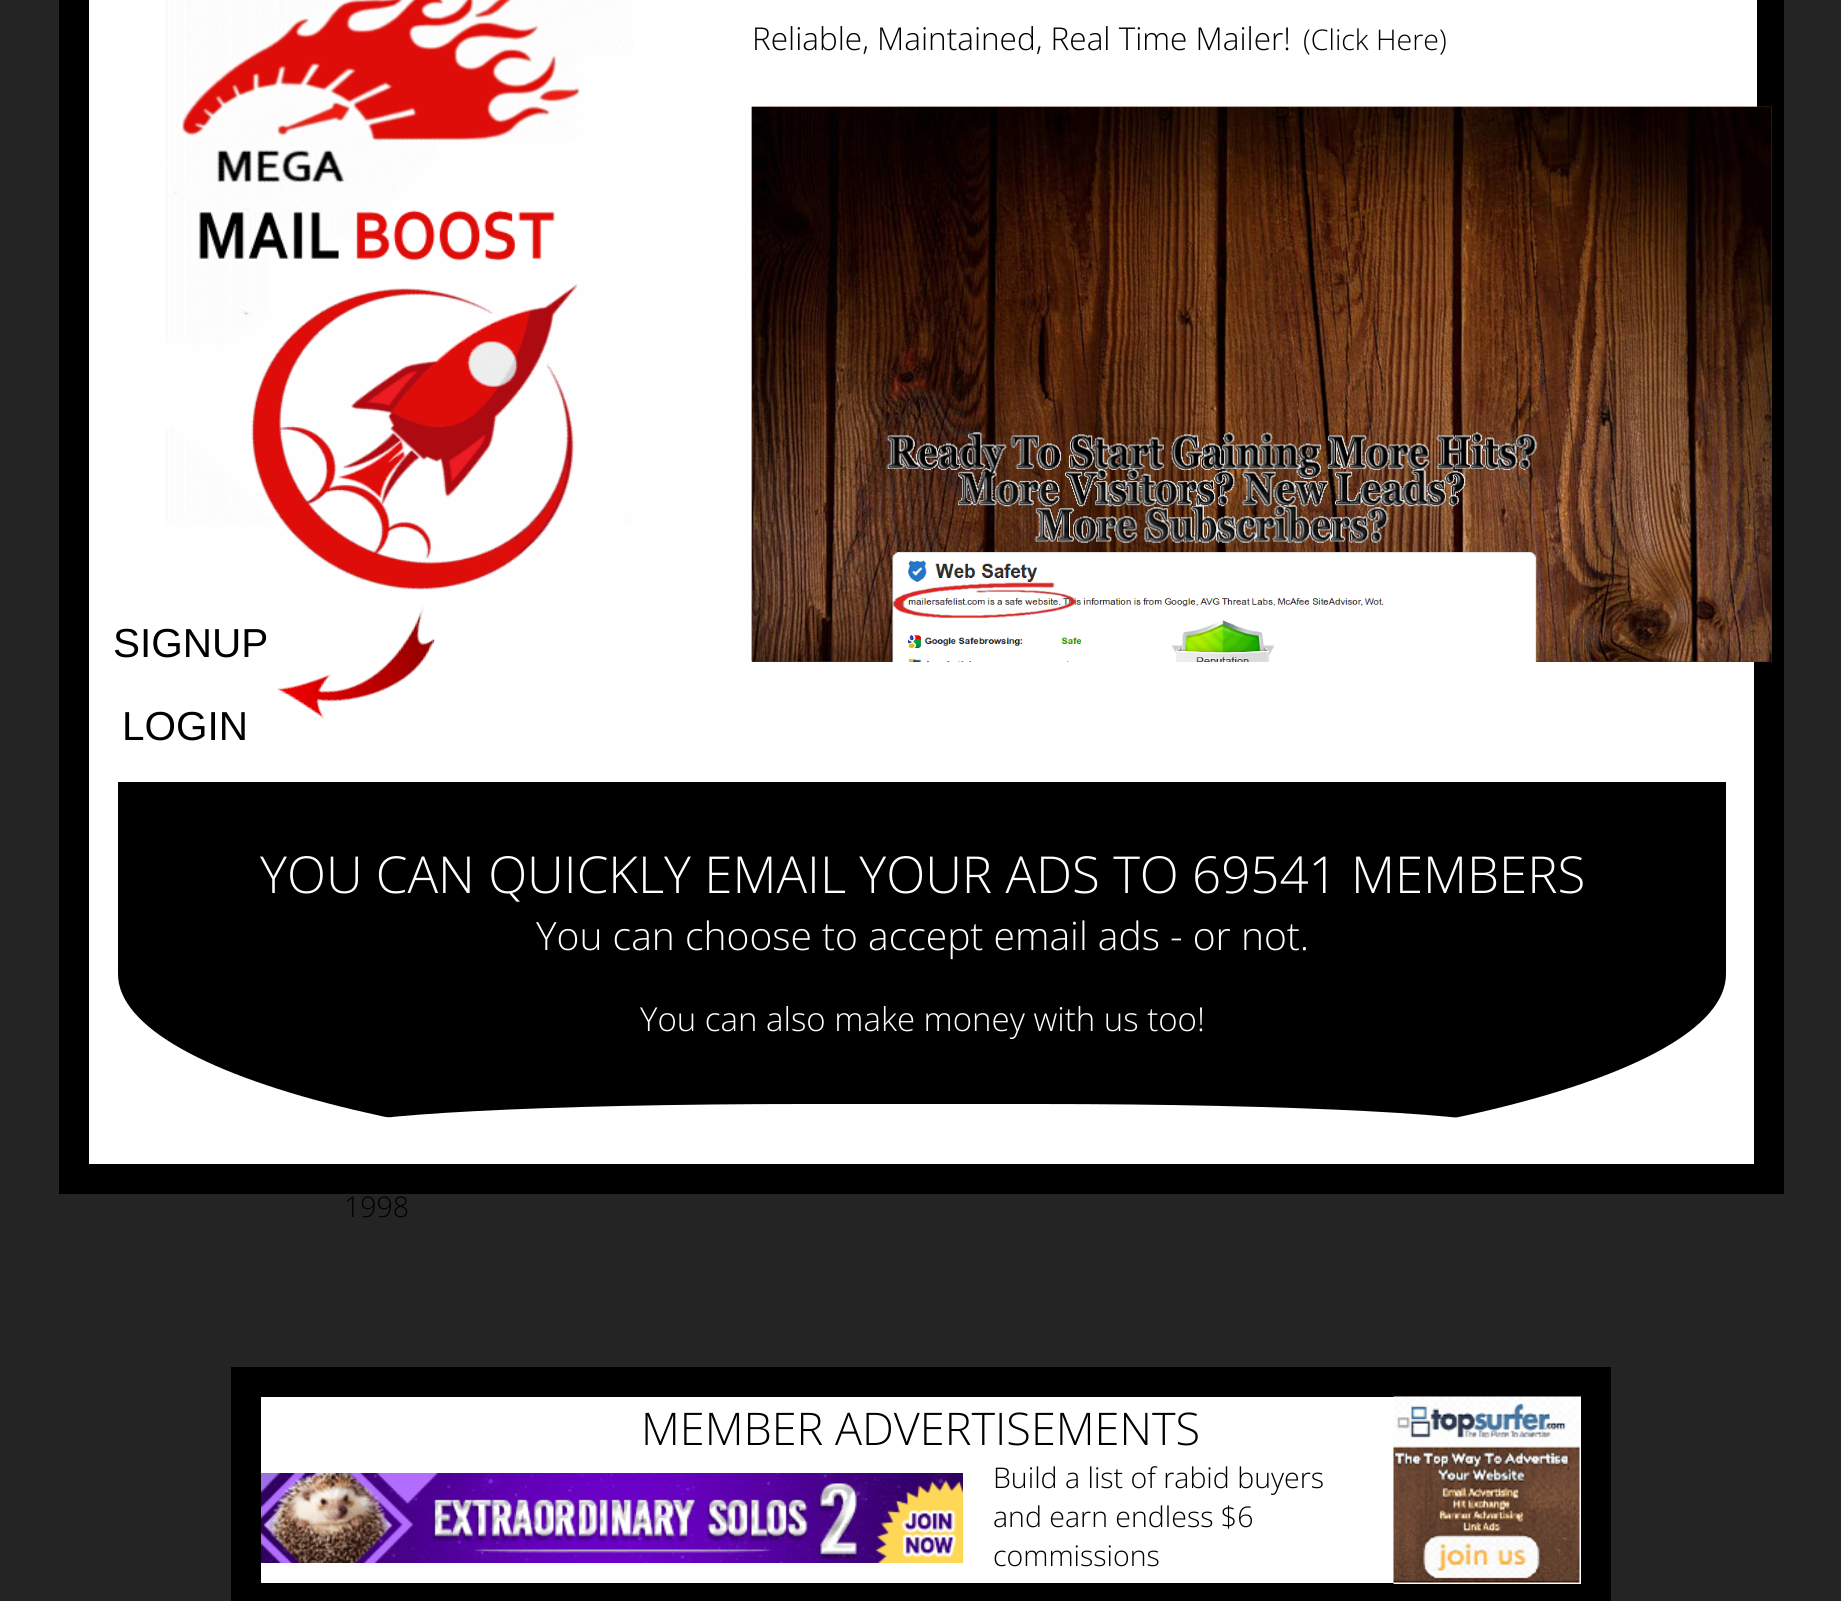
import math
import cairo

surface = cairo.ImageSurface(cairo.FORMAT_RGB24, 1841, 1601)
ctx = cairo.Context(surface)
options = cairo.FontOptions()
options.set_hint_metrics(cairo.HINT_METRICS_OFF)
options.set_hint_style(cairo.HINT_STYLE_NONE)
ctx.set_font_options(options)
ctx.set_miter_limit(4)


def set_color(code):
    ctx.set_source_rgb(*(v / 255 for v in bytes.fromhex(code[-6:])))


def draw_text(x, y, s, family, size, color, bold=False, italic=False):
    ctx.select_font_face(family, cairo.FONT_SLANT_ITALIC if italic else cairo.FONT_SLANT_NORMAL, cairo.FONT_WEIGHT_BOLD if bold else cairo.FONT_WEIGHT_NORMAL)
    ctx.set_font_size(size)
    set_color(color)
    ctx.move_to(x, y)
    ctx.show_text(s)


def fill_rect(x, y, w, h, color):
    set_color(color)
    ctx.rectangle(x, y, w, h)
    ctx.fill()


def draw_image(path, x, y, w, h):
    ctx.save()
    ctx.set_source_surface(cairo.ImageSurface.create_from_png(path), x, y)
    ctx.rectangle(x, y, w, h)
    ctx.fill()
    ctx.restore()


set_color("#242424")
ctx.paint()
set_color("#ffffff")
ctx.rectangle(74, -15, 1695, 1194)
ctx.fill_preserve()
set_color("#000000")
ctx.set_line_width(30)
ctx.stroke()
fill_rect(1754, 0, 3, 107, "#ffffff")
draw_text(752, 50, "Reliable, Maintained, Real Time Mailer!", "Open Sans Light", 31.5, "#000000")
draw_text(1303, 50, "(Click Here)", "Open Sans Light", 28.5, "#000000")
fill_rect(752, 107, 1002, 555, "#000000")
draw_image("assets/img1.png", 751, 106, 1021, 556)
draw_image("assets/img2.png", 165, 0, 468, 590)
draw_text(113, 657, "SIGNUP", "Liberation Sans", 40.5, "#000000")
draw_text(122, 740, "LOGIN", "Liberation Sans", 40.5, "#000000")
draw_image("assets/img3.png", 276, 605, 159, 114)
ctx.new_path()
ctx.move_to(118, 782)
ctx.line_to(1726, 782)
ctx.line_to(1726, 974)
ctx.curve_to(1726, 1080, 1367, 1166, 922, 1166)
ctx.curve_to(478, 1166, 118, 1080, 118, 974)
ctx.close_path()
ctx.fill()
draw_text(260, 893, "YOU CAN QUICKLY EMAIL YOUR ADS TO 69541 MEMBERS", "Open Sans Light", 51, "#ffffff")
draw_text(536, 950, "You can choose to accept email ads - or not.", "Open Sans Light", 39, "#ffffff")
draw_text(640, 1031, "You can also make money with us too!", "Open Sans Light", 33, "#ffffff")
ctx.new_path()
ctx.move_to(805, 1104)
ctx.line_to(1037, 1104)
ctx.curve_to(1295, 1104, 1503, 1115, 1503, 1128)
ctx.line_to(1503, 1164)
ctx.line_to(339, 1164)
ctx.line_to(339, 1128)
ctx.curve_to(339, 1115, 547, 1104, 805, 1104)
ctx.close_path()
ctx.fill()
draw_text(344, 1217, "1998", "Open Sans Light", 28.5, "#000000")
fill_rect(261, 1397, 1133, 61, "#ffffff")
ctx.rectangle(246, 1382, 1350, 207)
set_color("#000000")
ctx.stroke()
draw_text(641, 1445, "MEMBER ADVERTISEMENTS", "Open Sans Light", 45, "#000000")
fill_rect(261, 1458, 1133, 125, "#ffffff")
draw_image("assets/img4.png", 261, 1473, 702, 90)
draw_text(993, 1488, "Build a list of rabid buyers", "Open Sans Light", 28.5, "#000000")
draw_text(993, 1527, "and earn endless $6", "Open Sans Light", 28.5, "#000000")
draw_text(993, 1566, "commissions", "Open Sans Light", 28.5, "#000000")
draw_image("assets/img5.png", 1393, 1396, 188, 188)
surface.write_to_png("output.png")
